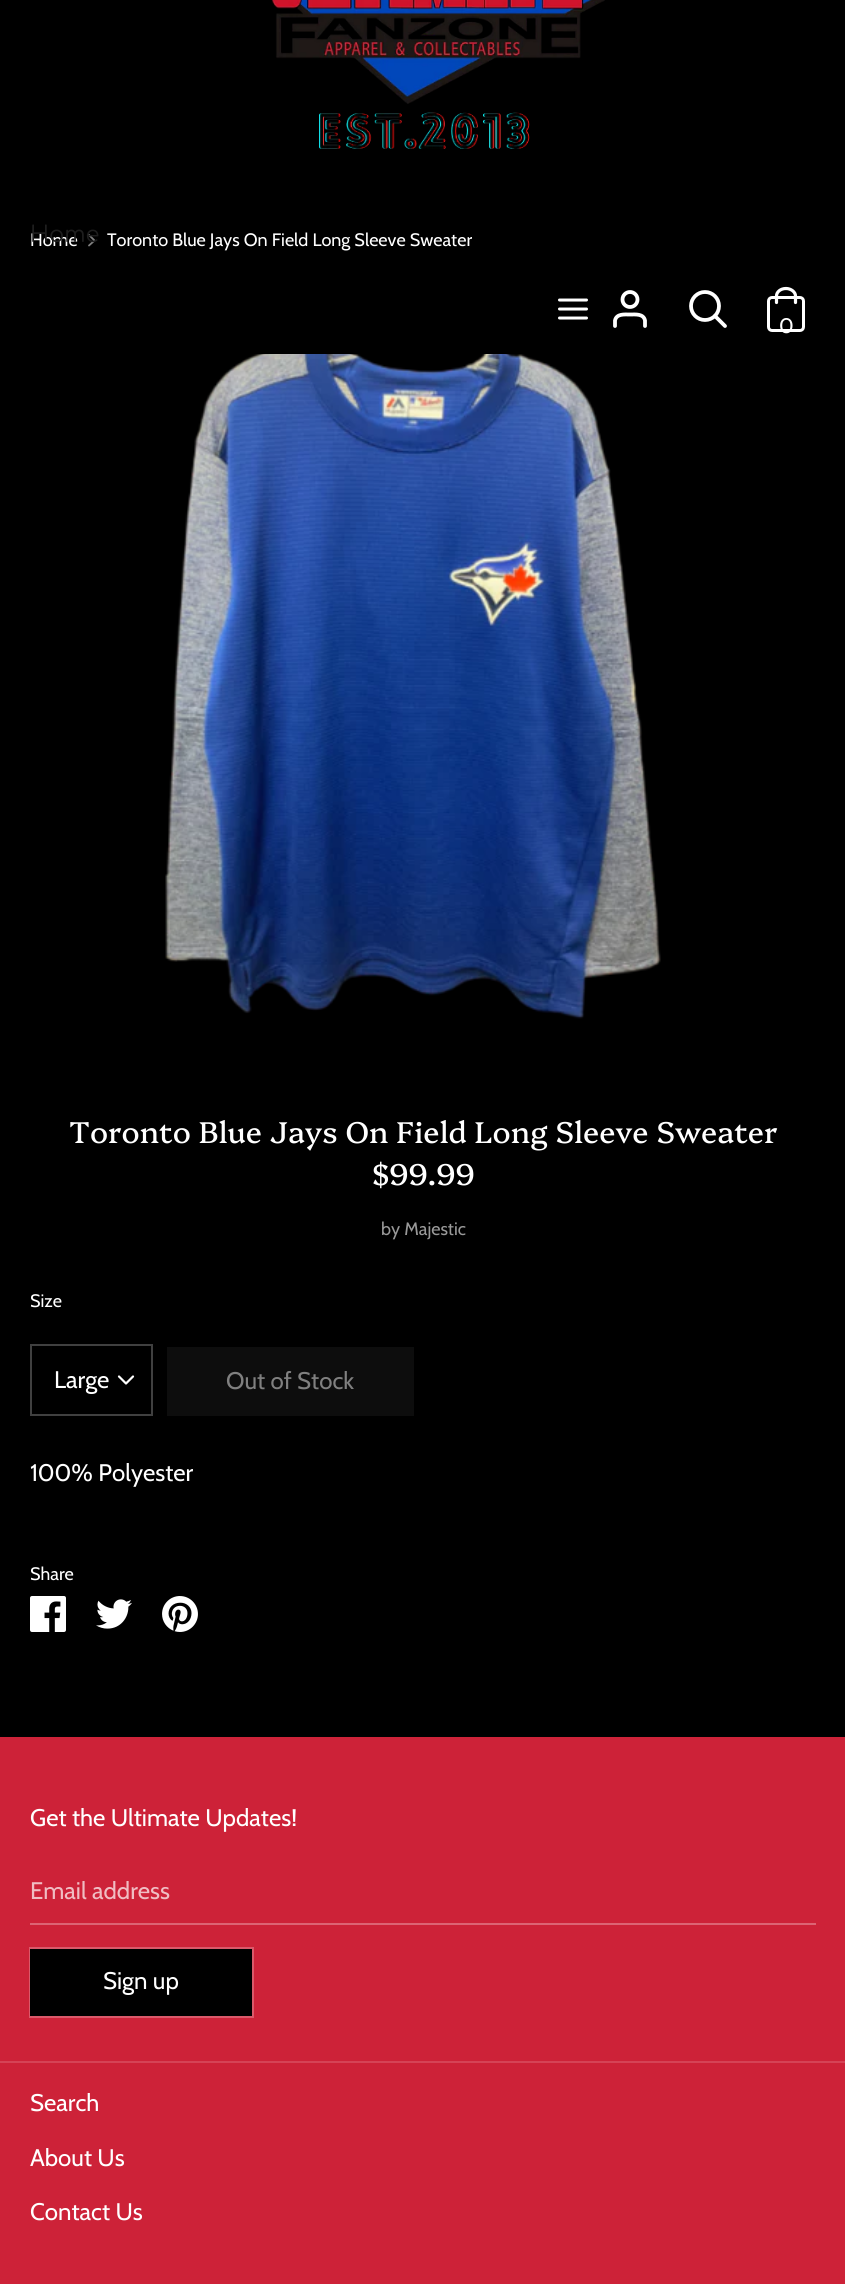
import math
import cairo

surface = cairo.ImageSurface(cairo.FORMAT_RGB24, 845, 2284)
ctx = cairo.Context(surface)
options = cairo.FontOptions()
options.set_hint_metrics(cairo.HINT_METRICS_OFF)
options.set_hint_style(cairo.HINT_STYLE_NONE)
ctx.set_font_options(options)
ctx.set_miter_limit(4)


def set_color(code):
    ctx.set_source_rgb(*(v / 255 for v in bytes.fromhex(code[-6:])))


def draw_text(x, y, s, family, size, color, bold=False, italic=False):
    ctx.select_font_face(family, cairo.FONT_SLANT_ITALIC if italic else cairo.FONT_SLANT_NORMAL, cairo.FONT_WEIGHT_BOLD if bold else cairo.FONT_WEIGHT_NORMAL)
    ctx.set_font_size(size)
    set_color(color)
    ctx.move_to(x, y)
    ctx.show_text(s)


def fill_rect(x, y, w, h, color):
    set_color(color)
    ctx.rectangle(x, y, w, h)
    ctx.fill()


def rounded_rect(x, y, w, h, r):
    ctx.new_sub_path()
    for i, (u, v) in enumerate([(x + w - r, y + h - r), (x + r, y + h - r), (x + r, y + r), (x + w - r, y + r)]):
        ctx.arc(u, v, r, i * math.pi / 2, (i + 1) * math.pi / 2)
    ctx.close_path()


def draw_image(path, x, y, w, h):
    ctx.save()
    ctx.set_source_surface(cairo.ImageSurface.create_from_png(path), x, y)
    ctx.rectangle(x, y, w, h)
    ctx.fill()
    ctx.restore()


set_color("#000000")
ctx.paint()
draw_text(30, 246, "Home", "Cabin", 18, "#ffffff")
ctx.new_path()
ctx.move_to(89, 245.5)
ctx.line_to(94.5, 240.5)
ctx.line_to(89, 235)
set_color("#808080")
ctx.set_line_width(1.8)
ctx.set_line_cap(cairo.LINE_CAP_ROUND)
ctx.stroke()
draw_text(30, 242, "Home", "Comfortaa", 22.5, "#1e1e1e")
draw_image("assets/img1.png", 271, 0, 334, 149)
ctx.new_path()
ctx.move_to(559.5, 309)
ctx.line_to(586.5, 309)
ctx.move_to(559.5, 300)
ctx.line_to(586.5, 300)
ctx.move_to(559.5, 318)
ctx.line_to(586.5, 318)
set_color("#ffffff")
ctx.set_line_width(3)
ctx.stroke()
ctx.new_path()
ctx.move_to(645, 326)
ctx.line_to(645, 320.5)
ctx.curve_to(643.5, 313.5, 635.5, 314.5, 630, 314.5)
ctx.curve_to(624.5, 314.5, 616.5, 313.5, 615, 320.5)
ctx.line_to(615, 326)
ctx.set_line_width(3.8)
ctx.stroke()
ctx.arc(630, 299.5, 7.5, 0, 2 * math.pi)
ctx.set_line_cap(cairo.LINE_CAP_BUTT)
ctx.stroke()
ctx.arc(705, 306, 14, 0, 2 * math.pi)
ctx.stroke()
ctx.new_path()
ctx.move_to(725, 326)
ctx.line_to(715, 316)
ctx.set_line_cap(cairo.LINE_CAP_ROUND)
ctx.stroke()
rounded_rect(768.5, 297.5, 35, 33, 3.5)
ctx.set_line_width(3)
ctx.set_line_cap(cairo.LINE_CAP_BUTT)
ctx.stroke()
ctx.new_path()
ctx.move_to(776.5, 302.5)
ctx.line_to(776.5, 296)
ctx.curve_to(776.5, 292, 780.5, 288.5, 786, 288.5)
ctx.curve_to(791, 288.5, 795.5, 292, 795.5, 296)
ctx.line_to(795.5, 302.5)
ctx.set_line_width(3.2)
ctx.set_line_cap(cairo.LINE_CAP_ROUND)
ctx.stroke()
draw_text(779, 333, "0", "Cabin", 21, "#ffffff")
draw_text(107, 246, "Toronto Blue Jays On Field Long Sleeve Sweater", "Cabin", 18, "#ffffff")
draw_image("assets/img2.png", 165, 354, 496, 665)
draw_text(69, 1143, "Toronto Blue Jays On Field Long Sleeve Sweater", "Platypi", 30, "#ffffff")
draw_text(372, 1185, "$99.99", "Platypi", 30, "#ffffff")
draw_text(381, 1235, "by Majestic", "Cabin", 18, "#999999")
draw_text(30, 1307, "Size", "Cabin", 18, "#ffffff")
ctx.new_path()
ctx.move_to(119, 1376.5)
ctx.line_to(126, 1383.5)
ctx.line_to(133, 1376.5)
ctx.set_line_width(2.2)
ctx.set_line_join(cairo.LINE_JOIN_ROUND)
ctx.stroke()
ctx.rectangle(31, 1345, 121, 70)
set_color("#404040")
ctx.set_line_width(2)
ctx.set_line_cap(cairo.LINE_CAP_BUTT)
ctx.set_line_join(cairo.LINE_JOIN_MITER)
ctx.stroke()
draw_text(54, 1388, "Large", "Cabin", 24, "#ffffff")
ctx.rectangle(168, 1348, 245, 67)
set_color("#0d0d0d")
ctx.stroke()
fill_rect(169, 1349, 243, 65, "#0d0d0d")
draw_text(226, 1389, "Out of Stock", "Cabin", 24, "#808080")
draw_text(30, 1481, "100% Polyester", "Cabin", 24, "#ffffff")
draw_text(30, 1580, "Share", "Cabin", 18, "#ffffff")
draw_image("assets/img3.png", 30, 1596, 36, 36)
draw_image("assets/img4.png", 96, 1599, 36, 30)
draw_image("assets/img5.png", 162, 1596, 36, 36)
fill_rect(0, 1737, 845, 547, "#cd2238")
draw_text(30, 1826, "Get the Ultimate Updates!", "Cabin", 24, "#ffffff")
fill_rect(30, 1923, 786, 2, "#dc6474")
draw_text(30, 1899, "Email address", "Cabin", 24, "#f0bdc3")
ctx.rectangle(30, 1948, 223, 69)
set_color("#da596a")
ctx.stroke()
fill_rect(30, 1949, 222, 67, "#000000")
draw_text(103, 1989, "Sign up", "Cabin", 24, "#ffffff")
fill_rect(0, 2061, 845, 2, "#d54356")
draw_text(30, 2111, "Search", "Cabin", 24, "#ffffff")
draw_text(30, 2166, "About Us", "Cabin", 24, "#ffffff")
draw_text(30, 2220, "Contact Us", "Cabin", 24, "#ffffff")
surface.write_to_png("output.png")
